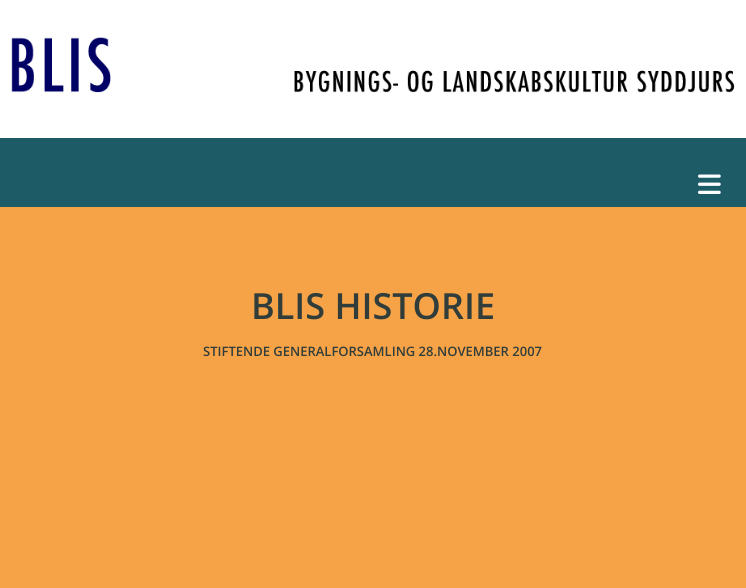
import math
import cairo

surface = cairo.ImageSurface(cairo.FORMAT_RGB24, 746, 588)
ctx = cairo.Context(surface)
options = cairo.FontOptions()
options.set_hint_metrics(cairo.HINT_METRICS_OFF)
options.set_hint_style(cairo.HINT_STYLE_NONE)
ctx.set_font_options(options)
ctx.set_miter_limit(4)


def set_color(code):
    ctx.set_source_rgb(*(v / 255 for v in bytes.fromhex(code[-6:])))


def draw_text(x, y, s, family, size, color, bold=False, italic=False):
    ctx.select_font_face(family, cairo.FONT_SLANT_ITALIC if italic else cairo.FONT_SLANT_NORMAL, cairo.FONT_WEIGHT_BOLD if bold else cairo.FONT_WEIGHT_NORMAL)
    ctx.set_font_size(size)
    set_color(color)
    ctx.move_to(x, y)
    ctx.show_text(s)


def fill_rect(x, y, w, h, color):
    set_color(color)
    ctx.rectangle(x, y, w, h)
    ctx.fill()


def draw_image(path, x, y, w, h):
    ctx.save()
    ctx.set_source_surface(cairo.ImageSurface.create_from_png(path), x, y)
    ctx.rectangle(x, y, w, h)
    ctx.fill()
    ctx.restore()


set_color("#f6a347")
ctx.paint()
fill_rect(0, 0, 746, 138, "#ffffff")
draw_image("assets/img1.png", 11, 37, 724, 56)
fill_rect(0, 138, 746, 69, "#1d5c67")
draw_image("assets/img2.png", 698, 174, 23, 20)
draw_text(251, 319, "BLIS HISTORIE", "Open Sans SemiBold", 36, "#303d3a")
draw_text(203, 356, "STIFTENDE GENERALFORSAMLING 28.NOVEMBER 2007", "Open Sans SemiBold", 13, "#303d3a")
surface.write_to_png("output.png")
